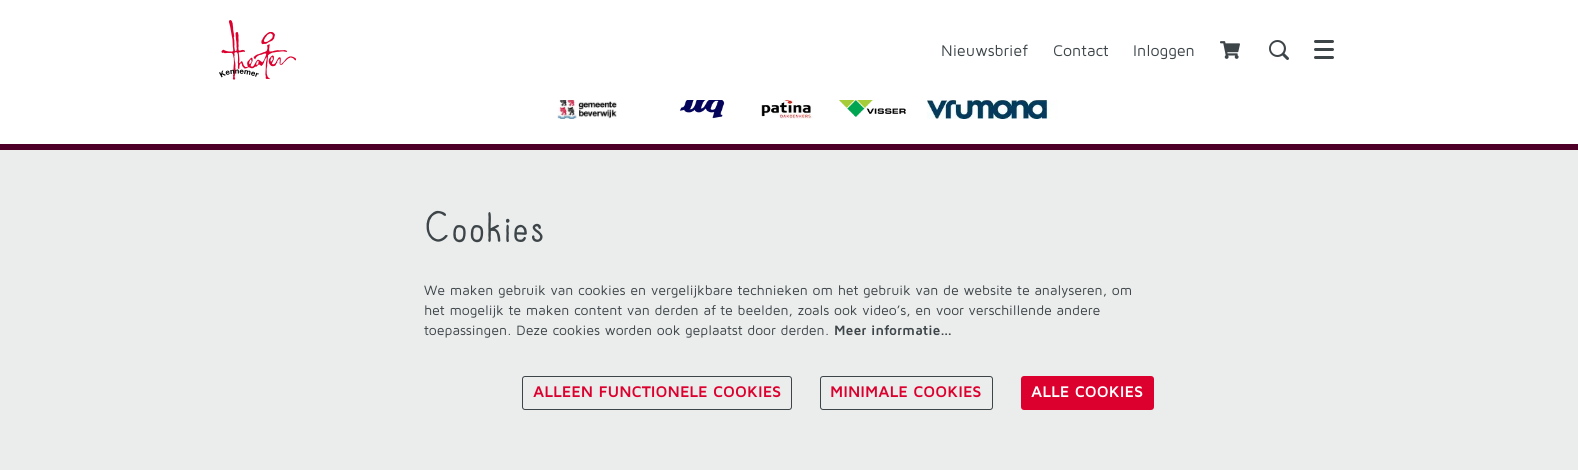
import math
import cairo

surface = cairo.ImageSurface(cairo.FORMAT_RGB24, 1578, 470)
ctx = cairo.Context(surface)
options = cairo.FontOptions()
options.set_hint_metrics(cairo.HINT_METRICS_OFF)
options.set_hint_style(cairo.HINT_STYLE_NONE)
ctx.set_font_options(options)
ctx.set_miter_limit(4)


def set_color(code):
    ctx.set_source_rgb(*(v / 255 for v in bytes.fromhex(code[-6:])))


def draw_text(x, y, s, family, size, color, bold=False, italic=False):
    ctx.select_font_face(family, cairo.FONT_SLANT_ITALIC if italic else cairo.FONT_SLANT_NORMAL, cairo.FONT_WEIGHT_BOLD if bold else cairo.FONT_WEIGHT_NORMAL)
    ctx.set_font_size(size)
    set_color(color)
    ctx.move_to(x, y)
    ctx.show_text(s)


def fill_rect(x, y, w, h, color):
    set_color(color)
    ctx.rectangle(x, y, w, h)
    ctx.fill()


def rounded_rect(x, y, w, h, r):
    ctx.new_sub_path()
    for i, (u, v) in enumerate([(x + w - r, y + h - r), (x + r, y + h - r), (x + r, y + r), (x + w - r, y + r)]):
        ctx.arc(u, v, r, i * math.pi / 2, (i + 1) * math.pi / 2)
    ctx.close_path()


def draw_image(path, x, y, w, h):
    ctx.save()
    ctx.set_source_surface(cairo.ImageSurface.create_from_png(path), x, y)
    ctx.rectangle(x, y, w, h)
    ctx.fill()
    ctx.restore()


set_color("#ffffff")
ctx.paint()
draw_image("assets/img1.png", 219, 20, 77, 60)
draw_text(941, 56, "Nieuwsbrief", "Maven Pro", 16, "#3d4548")
draw_text(1053, 56, "Contact", "Maven Pro", 16, "#3d4548")
draw_text(1133, 56, "Inloggen", "Maven Pro", 16, "#3d4548")
draw_image("assets/img2.png", 1220, 41, 20, 18)
draw_image("assets/img3.png", 1269, 40, 20, 20)
rounded_rect(1314, 40, 20, 3, 1.5)
ctx.fill()
rounded_rect(1314, 48, 20, 3, 1.5)
ctx.fill()
rounded_rect(1314, 56, 20, 3, 1.5)
ctx.fill()
draw_image("assets/img4.png", 556, 100, 61, 19)
draw_image("assets/img5.png", 679, 100, 46, 19)
draw_image("assets/img6.png", 761, 100, 52, 19)
draw_image("assets/img7.png", 839, 100, 67, 17)
draw_image("assets/img8.png", 927, 100, 131, 19)
fill_rect(0, 144, 1578, 6, "#4e0029")
fill_rect(0, 150, 1578, 320, "#ebecec")
draw_text(424, 242, "Cookies", "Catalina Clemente", 40, "#3d4548", bold=True)
draw_text(424, 295, "We maken gebruik van cookies en vergelijkbare technieken om het gebruik van de website te analyseren, om", "Maven Pro", 14, "#3d4548")
draw_text(424, 315, "het mogelijk te maken content van derden af te beelden, zoals ook video’s, en voor verschillende andere", "Maven Pro", 14, "#3d4548")
draw_text(424, 335, "toepassingen. Deze cookies worden ook geplaatst door derden.", "Maven Pro", 14, "#3d4548")
draw_text(834, 335, "Meer informatie…", "Maven Pro", 14, "#3d4548", bold=True)
rounded_rect(522.5, 376.5, 269, 33, 2.5)
ctx.set_line_width(1)
ctx.stroke()
draw_text(533, 397, "ALLEEN FUNCTIONELE COOKIES", "Maven Pro", 16, "#dc002e", bold=True)
rounded_rect(820.5, 376.5, 172, 33, 2.5)
set_color("#3d4548")
ctx.stroke()
draw_text(830, 397, "MINIMALE COOKIES", "Maven Pro", 16, "#dc002e", bold=True)
rounded_rect(1021, 376, 133, 34, 3)
ctx.fill()
draw_text(1031, 397, "ALLE COOKIES", "Maven Pro", 16, "#ffffff", bold=True)
surface.write_to_png("output.png")
